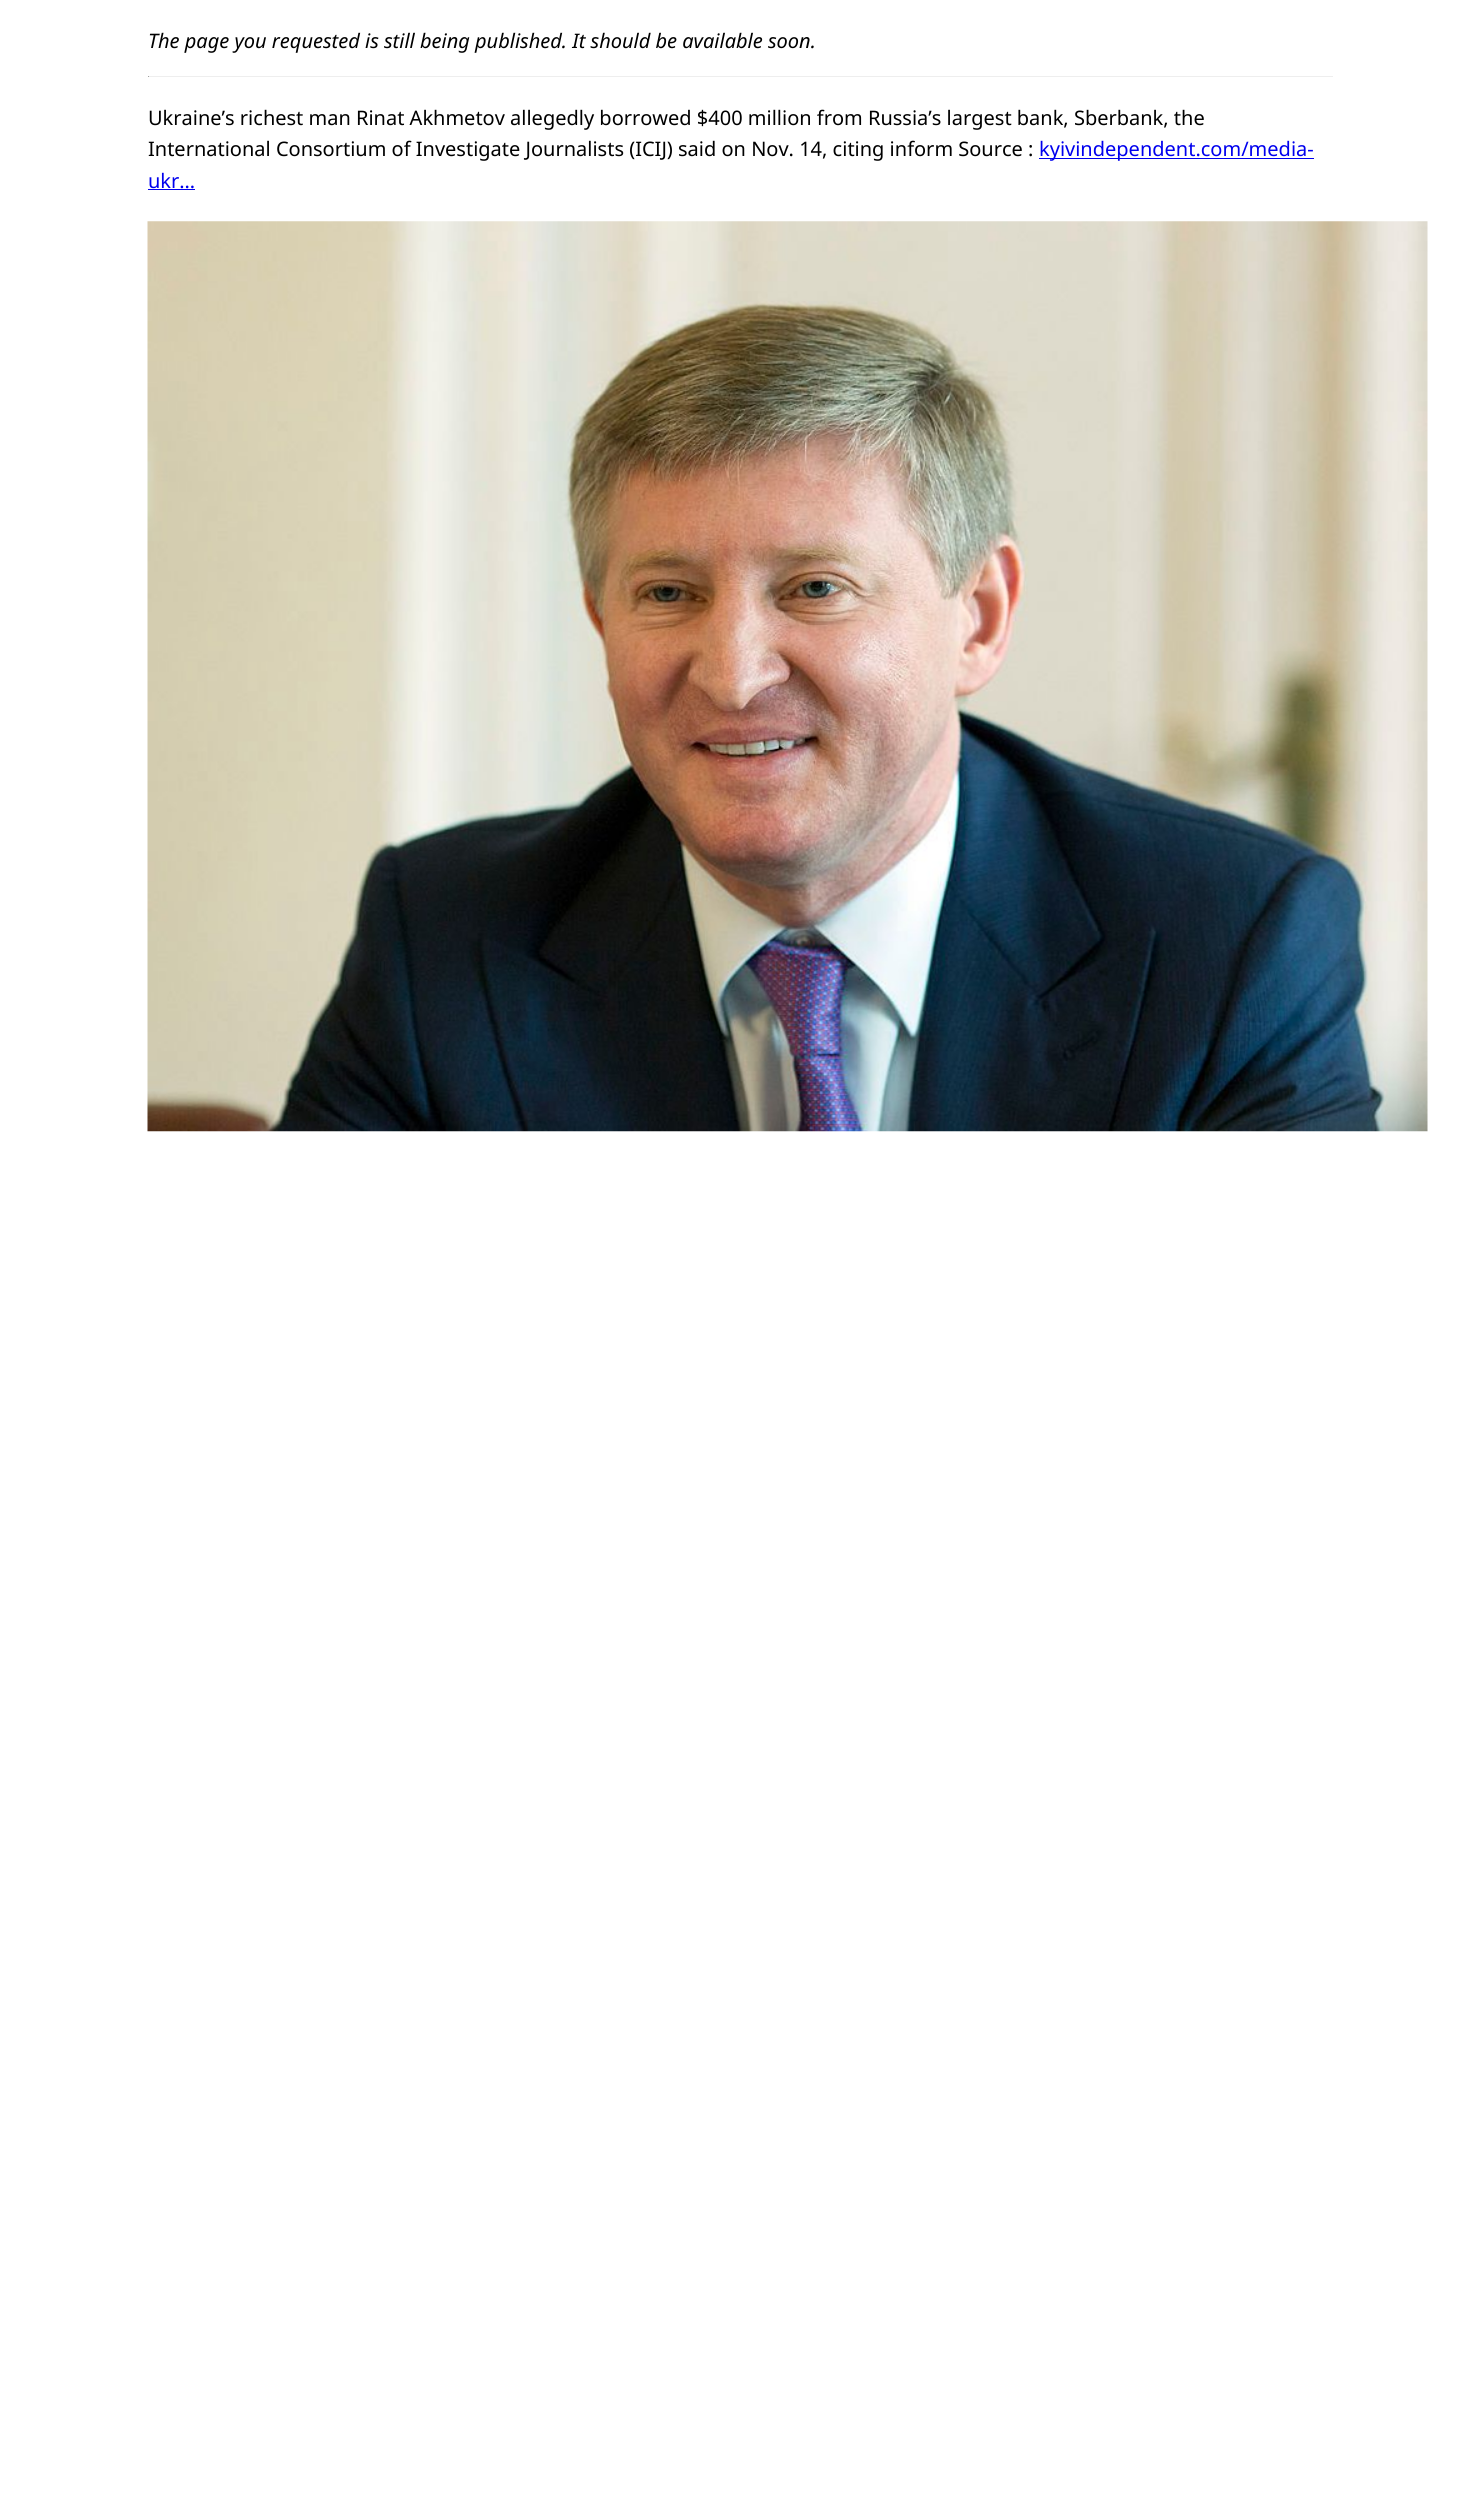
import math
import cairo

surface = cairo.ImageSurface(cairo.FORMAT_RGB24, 1480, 2518)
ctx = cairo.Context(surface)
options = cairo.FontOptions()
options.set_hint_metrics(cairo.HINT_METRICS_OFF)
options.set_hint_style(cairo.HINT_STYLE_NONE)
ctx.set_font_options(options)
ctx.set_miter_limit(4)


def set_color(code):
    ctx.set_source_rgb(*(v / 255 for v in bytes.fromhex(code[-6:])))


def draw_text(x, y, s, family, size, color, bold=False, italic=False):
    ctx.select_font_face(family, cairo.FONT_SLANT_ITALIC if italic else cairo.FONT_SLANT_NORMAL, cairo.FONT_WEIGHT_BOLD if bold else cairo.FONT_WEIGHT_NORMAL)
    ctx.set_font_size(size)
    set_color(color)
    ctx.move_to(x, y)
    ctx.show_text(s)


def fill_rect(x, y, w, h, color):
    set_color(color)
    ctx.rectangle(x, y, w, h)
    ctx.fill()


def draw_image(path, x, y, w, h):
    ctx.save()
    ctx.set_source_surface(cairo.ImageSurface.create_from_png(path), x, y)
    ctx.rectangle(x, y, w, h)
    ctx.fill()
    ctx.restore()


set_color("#ffffff")
ctx.paint()
draw_text(148, 48, "The page you requested is still being published. It should be available soon.", "Noto Sans", 20, "#000000", italic=True)
fill_rect(148, 76, 1185, 1, "#eeeeee")
fill_rect(148, 76, 1, 1, "#9f9f9f")
draw_text(148, 125, "Ukraine’s richest man Rinat Akhmetov allegedly borrowed $400 million from Russia’s largest bank, Sberbank, the", "Noto Sans", 20, "#000000")
draw_text(148, 156, "International Consortium of Investigate Journalists (ICIJ) said on Nov. 14, citing inform Source :", "Noto Sans", 20, "#000000")
fill_rect(1039, 158, 275, 1, "#0000ee")
draw_text(1039, 156, "kyivindependent.com/media-", "Noto Sans", 20, "#0000ee")
draw_text(148, 188, "ukr…", "Noto Sans", 20, "#0000ee")
fill_rect(148, 189, 47, 1, "#0000ee")
draw_image("assets/img1.png", 147, 221, 1281, 911)
surface.write_to_png("output.png")
